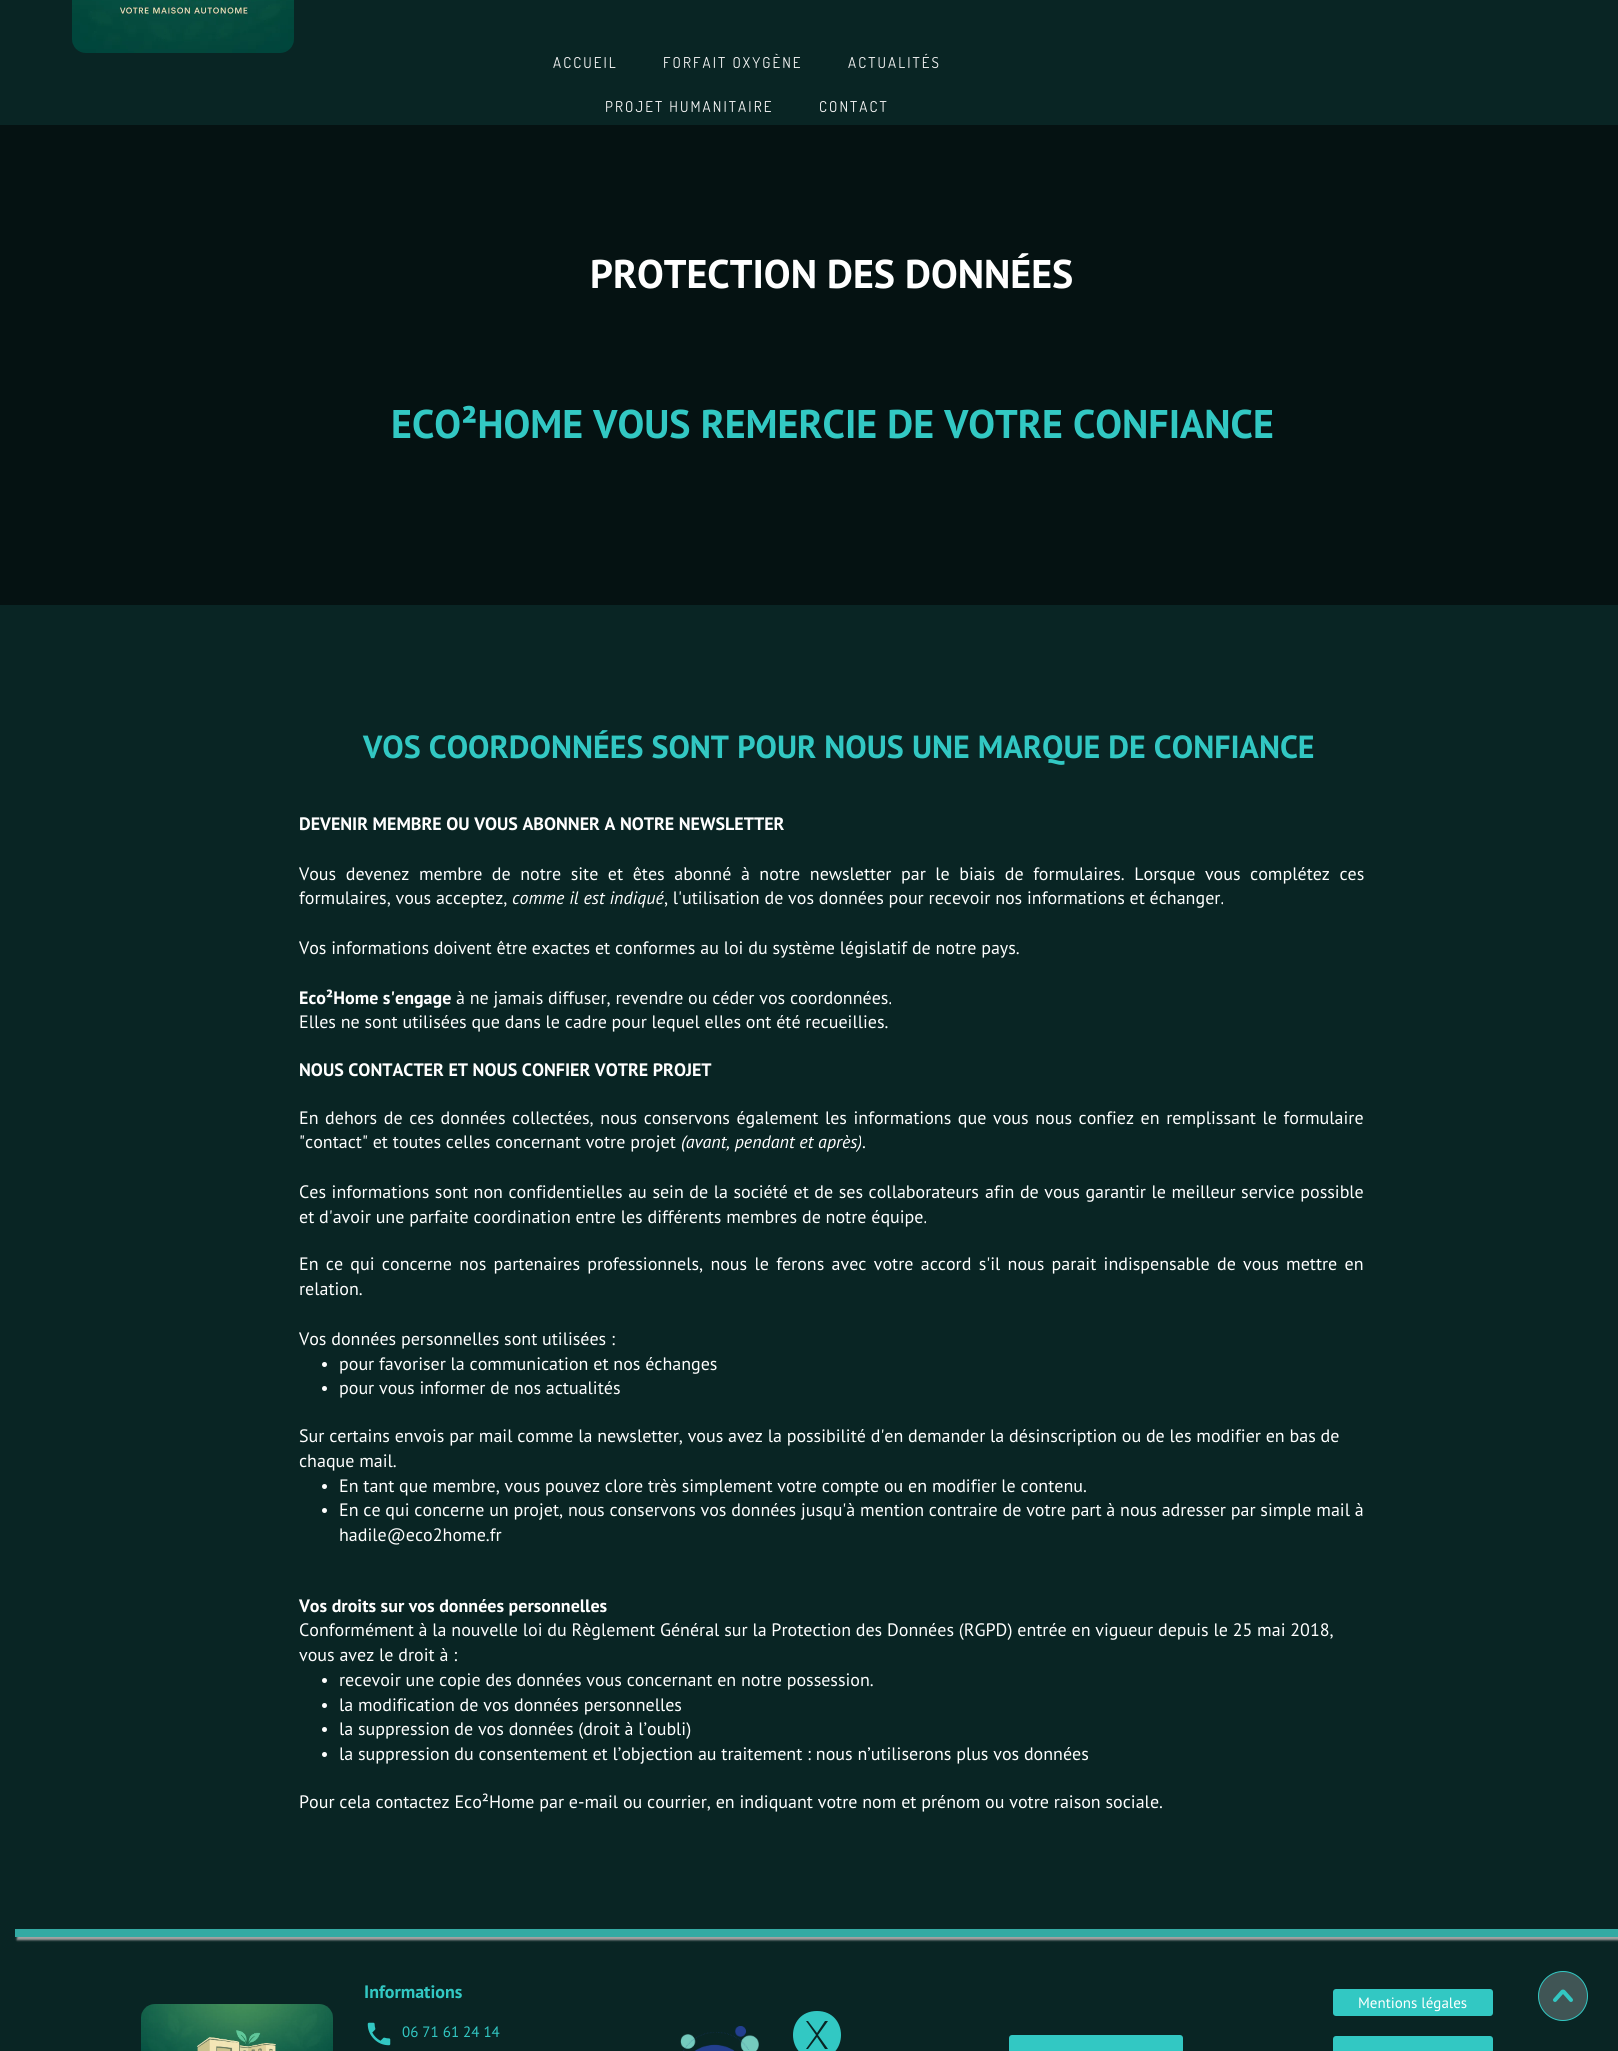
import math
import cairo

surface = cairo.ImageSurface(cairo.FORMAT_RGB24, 1618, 2051)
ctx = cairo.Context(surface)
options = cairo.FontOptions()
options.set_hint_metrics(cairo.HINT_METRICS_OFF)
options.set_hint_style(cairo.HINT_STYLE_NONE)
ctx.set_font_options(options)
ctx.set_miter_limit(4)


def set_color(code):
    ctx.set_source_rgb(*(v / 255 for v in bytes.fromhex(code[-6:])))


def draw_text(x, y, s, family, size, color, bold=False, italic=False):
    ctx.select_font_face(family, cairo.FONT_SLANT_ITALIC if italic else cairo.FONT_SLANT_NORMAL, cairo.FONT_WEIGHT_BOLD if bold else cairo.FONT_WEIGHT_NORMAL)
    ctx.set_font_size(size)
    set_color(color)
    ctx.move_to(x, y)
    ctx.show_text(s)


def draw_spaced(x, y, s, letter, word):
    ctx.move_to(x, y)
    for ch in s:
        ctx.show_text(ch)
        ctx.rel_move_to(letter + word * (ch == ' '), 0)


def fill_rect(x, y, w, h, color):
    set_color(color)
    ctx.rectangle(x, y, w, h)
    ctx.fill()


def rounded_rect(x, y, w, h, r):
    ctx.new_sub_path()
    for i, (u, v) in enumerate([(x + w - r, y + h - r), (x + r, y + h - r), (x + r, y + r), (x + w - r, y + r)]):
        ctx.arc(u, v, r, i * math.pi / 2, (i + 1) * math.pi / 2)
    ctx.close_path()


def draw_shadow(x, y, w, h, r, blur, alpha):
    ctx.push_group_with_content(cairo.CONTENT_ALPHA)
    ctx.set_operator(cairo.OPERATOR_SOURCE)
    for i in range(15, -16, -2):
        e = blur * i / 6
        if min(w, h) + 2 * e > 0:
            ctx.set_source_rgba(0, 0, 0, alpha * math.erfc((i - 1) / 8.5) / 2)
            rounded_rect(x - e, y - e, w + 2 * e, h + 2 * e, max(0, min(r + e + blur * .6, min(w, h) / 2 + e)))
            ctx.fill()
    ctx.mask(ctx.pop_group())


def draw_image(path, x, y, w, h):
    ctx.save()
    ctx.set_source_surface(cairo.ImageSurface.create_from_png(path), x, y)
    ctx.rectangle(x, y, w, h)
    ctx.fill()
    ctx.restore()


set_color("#092524")
ctx.paint()
draw_image("assets/img1.png", 72, 0, 222, 53)
ctx.select_font_face("Dosis")
ctx.set_font_size(15)
set_color("#f5f5f5")
draw_spaced(553, 68, "ACCUEIL", 2.1, 0)
draw_spaced(663, 68, "FORFAIT OXYGÈNE", 2.1, 0)
draw_spaced(848, 68, "ACTUALITÉS", 2.1, 0)
draw_spaced(605, 112, "PROJET HUMANITAIRE", 2.1, 0)
draw_spaced(819, 112, "CONTACT", 2.1, 0)
fill_rect(0, 125, 1618, 480, "#051212")
draw_text(590, 288, "PROTECTION DES DONNÉES", "PT Sans", 40, "#ffffff", bold=True)
draw_text(391, 438, "ECO²HOME VOUS REMERCIE DE VOTRE CONFIANCE", "PT Sans", 40, "#32c8c3", bold=True)
draw_text(363, 758, "VOS COORDONNÉES SONT POUR NOUS UNE MARQUE DE CONFIANCE", "PT Sans", 32, "#32c8c3", bold=True)
draw_text(299, 830, "DEVENIR MEMBRE OU VOUS ABONNER A NOTRE NEWSLETTER", "PT Sans", 18, "#ffffff", bold=True)
ctx.select_font_face("PT Sans")
draw_spaced(299, 880, "Vous devenez membre de notre site et êtes abonné à notre newsletter par le biais de formulaires. Lorsque vous complétez ces", 0, 4.75)
draw_text(299, 904, "formulaires, vous acceptez,", "PT Sans", 18, "#ffffff")
draw_text(512, 904, "comme il est indiqué", "PT Sans", 18, "#ffffff", italic=True)
draw_text(664, 904, ", l'utilisation de vos données pour recevoir nos informations et échanger.", "PT Sans", 18, "#ffffff")
draw_text(299, 954, "Vos informations doivent être exactes et conformes au loi du système législatif de notre pays.", "PT Sans", 18, "#ffffff")
draw_text(299, 1004, "Eco²Home s'engage", "PT Sans", 18, "#ffffff", bold=True)
draw_text(456, 1004, "à ne jamais diffuser, revendre ou céder vos coordonnées.", "PT Sans", 18, "#ffffff")
draw_text(299, 1028, "Elles ne sont utilisées que dans le cadre pour lequel elles ont été recueillies.", "PT Sans", 18, "#ffffff")
draw_text(299, 1076, "NOUS CONTACTER ET NOUS CONFIER VOTRE PROJET", "PT Sans", 18, "#ffffff", bold=True)
ctx.select_font_face("PT Sans")
draw_spaced(299, 1124, "En dehors de ces données collectées, nous conservons également les informations que vous nous confiez en remplissant le formulaire", 0, 1.8)
draw_text(299, 1148, "\"contact\" et toutes celles concernant votre projet", "PT Sans", 18, "#ffffff")
draw_text(681, 1148, "(avant, pendant et après)", "PT Sans", 18, "#ffffff", italic=True)
draw_text(862, 1148, ".", "PT Sans", 18, "#ffffff")
draw_spaced(299, 1198, "Ces informations sont non confidentielles au sein de la société et de ses collaborateurs", 0, 0.75)
draw_spaced(985, 1198, "afin de vous garantir le meilleur service possible", 0, 0.75)
draw_text(299, 1223, "et d'avoir une parfaite coordination entre les différents membres de notre équipe.", "PT Sans", 18, "#ffffff")
draw_spaced(299, 1270, "En ce qui concerne nos partenaires professionnels, nous le ferons avec votre accord s'il nous parait indispensable de vous mettre en", 0, 2.5)
draw_text(299, 1295, "relation.", "PT Sans", 18, "#ffffff")
draw_text(299, 1345, "Vos données personnelles sont utilisées :", "PT Sans", 18, "#ffffff")
ctx.new_path()
ctx.arc(324.5, 1364.5, 2.5, 0, 2 * math.pi)
ctx.fill()
draw_text(339, 1370, "pour favoriser la communication et nos échanges", "PT Sans", 18, "#ffffff")
ctx.new_path()
ctx.arc(324.5, 1388.5, 2.5, 0, 2 * math.pi)
ctx.fill()
draw_text(339, 1394, "pour vous informer de nos actualités", "PT Sans", 18, "#ffffff")
draw_text(299, 1442, "Sur certains envois par mail comme la newsletter, vous avez la possibilité d'en demander la désinscription ou de les modifier en bas de", "PT Sans", 18, "#ffffff")
draw_text(299, 1467, "chaque mail.", "PT Sans", 18, "#ffffff")
ctx.new_path()
ctx.arc(324.5, 1486.5, 2.5, 0, 2 * math.pi)
ctx.fill()
draw_text(339, 1492, "En tant que membre, vous pouvez clore très simplement votre compte ou en modifier le contenu.", "PT Sans", 18, "#ffffff")
ctx.new_path()
ctx.arc(324.5, 1510.5, 2.5, 0, 2 * math.pi)
ctx.fill()
draw_text(339, 1516, "En ce qui concerne un projet, nous conservons vos données jusqu'à mention contraire de votre part à nous adresser par simple mail à", "PT Sans", 18, "#ffffff")
draw_text(339, 1541, "hadile@eco2home.fr", "PT Sans", 18, "#ffffff")
draw_text(299, 1612, "Vos droits sur vos données personnelles", "PT Sans", 18, "#ffffff", bold=True)
draw_text(299, 1636, "Conformément à la nouvelle loi du Règlement Général sur la Protection des Données (RGPD) entrée en vigueur depuis le 25 mai 2018,", "PT Sans", 18, "#ffffff")
draw_text(299, 1661, "vous avez le droit à :", "PT Sans", 18, "#ffffff")
ctx.new_path()
ctx.arc(324.5, 1680.5, 2.5, 0, 2 * math.pi)
ctx.fill()
draw_text(339, 1686, "recevoir une copie des données vous concernant en notre possession.", "PT Sans", 18, "#ffffff")
ctx.new_path()
ctx.arc(324.5, 1705.5, 2.5, 0, 2 * math.pi)
ctx.fill()
draw_text(339, 1711, "la modification de vos données personnelles", "PT Sans", 18, "#ffffff")
ctx.new_path()
ctx.arc(324.5, 1729.5, 2.5, 0, 2 * math.pi)
ctx.fill()
draw_text(339, 1735, "la suppression de vos données (droit à l’oubli)", "PT Sans", 18, "#ffffff")
ctx.new_path()
ctx.arc(324.5, 1754.5, 2.5, 0, 2 * math.pi)
ctx.fill()
draw_text(339, 1760, "la suppression du consentement et l’objection au traitement : nous n’utiliserons plus vos données", "PT Sans", 18, "#ffffff")
draw_text(299, 1808, "Pour cela contactez Eco²Home par e-mail ou courrier, en indiquant votre nom et prénom ou votre raison sociale.", "PT Sans", 18, "#ffffff")
set_color("#a3a3a3")
draw_shadow(17, 1931, 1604, 9, 0, 1, 1)
fill_rect(15, 1929, 1603, 8, "#33aaa3")
draw_text(364, 1998, "Informations", "PT Sans", 18, "#32c8c3", bold=True)
draw_image("assets/img2.png", 141, 2004, 192, 47)
draw_image("assets/img3.png", 367, 2022, 24, 24)
draw_text(402, 2037, "06 71 61 24 14", "PT Sans", 15, "#32c8c3")
draw_image("assets/img4.png", 680, 2026, 79, 25)
ctx.new_path()
ctx.move_to(828, 2049)
ctx.line_to(818, 2035)
ctx.line_to(828, 2021)
ctx.line_to(825, 2021)
ctx.line_to(817, 2033)
ctx.line_to(808, 2021)
ctx.line_to(806, 2021)
ctx.line_to(816, 2035)
ctx.line_to(806, 2049)
ctx.line_to(808, 2049)
ctx.line_to(817, 2037)
ctx.line_to(825, 2049)
ctx.close_path()
ctx.move_to(817, 2011)
ctx.curve_to(849, 2011, 849, 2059, 817, 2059)
ctx.curve_to(785, 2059, 785, 2011, 817, 2011)
ctx.close_path()
ctx.fill()
rounded_rect(1009, 2035, 174, 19, 3)
ctx.fill()
rounded_rect(1333, 1989, 160, 27, 3)
ctx.fill()
draw_text(1358, 2008, "Mentions légales", "PT Sans", 15, "#ffffff")
set_color("#32c8c3")
rounded_rect(1333, 2036, 160, 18, 3)
ctx.fill()
set_color("#405555")
ctx.arc(1563, 1996, 24.5, 0, 2 * math.pi)
ctx.fill_preserve()
set_color("#32c8c3")
ctx.set_line_width(1)
ctx.stroke()
draw_image("assets/img5.png", 1553, 1989, 20, 13)
surface.write_to_png("output.png")
